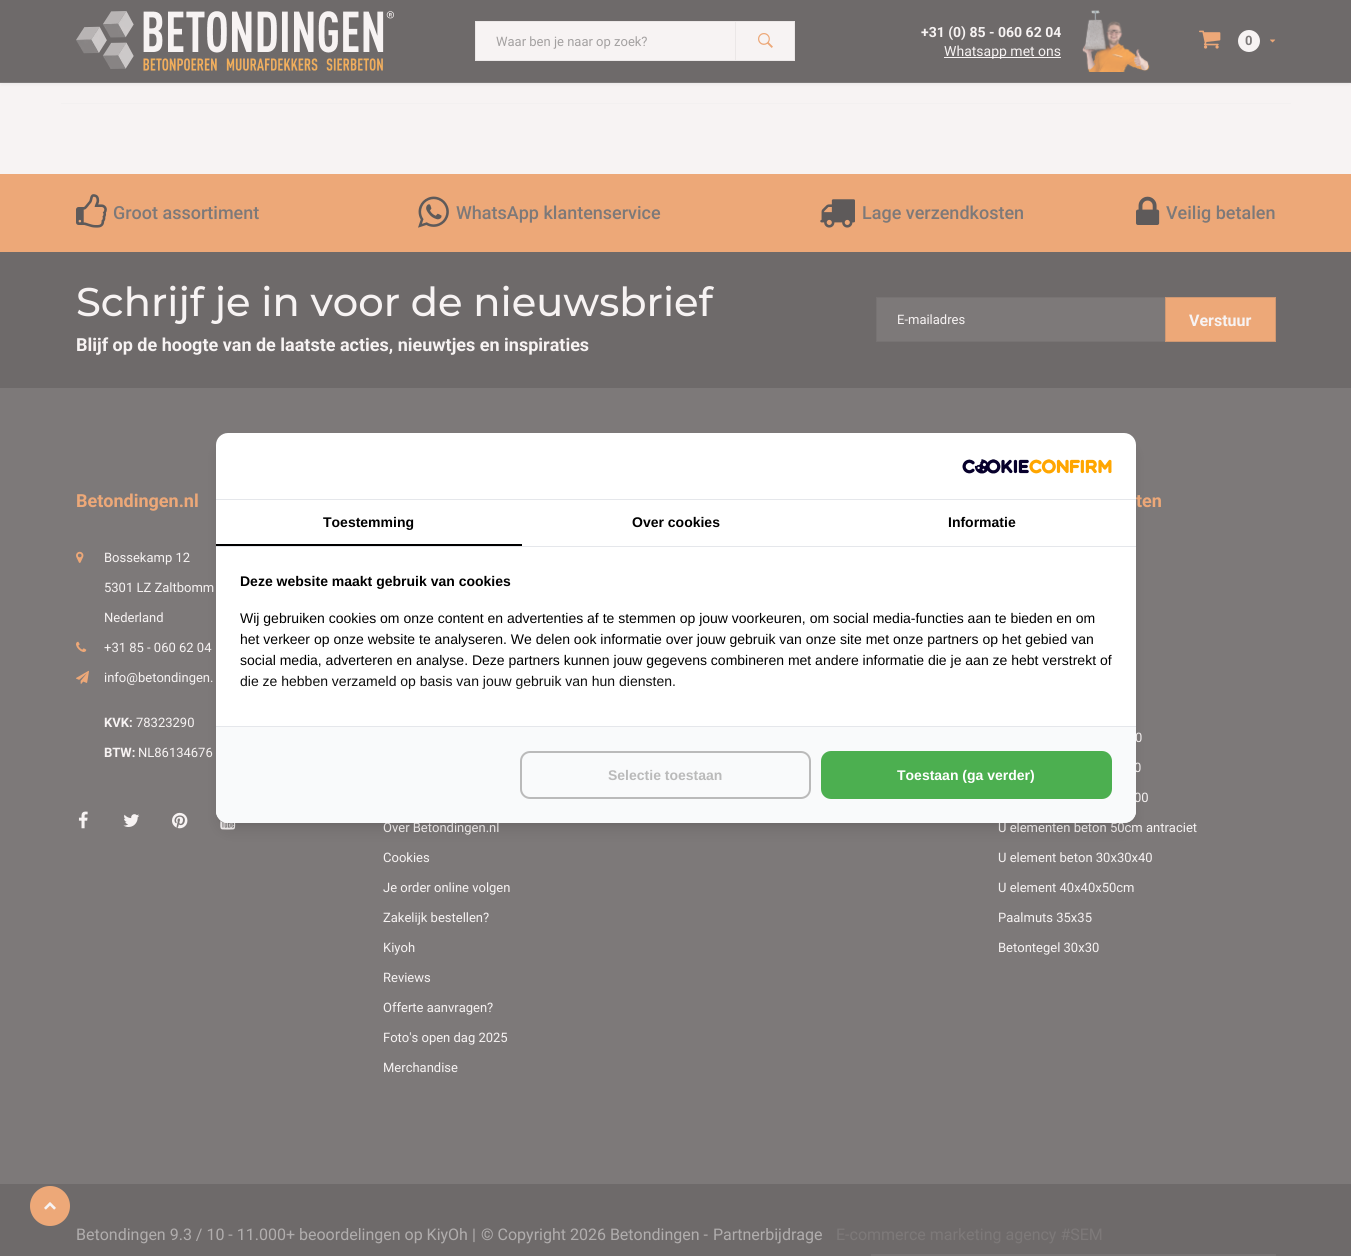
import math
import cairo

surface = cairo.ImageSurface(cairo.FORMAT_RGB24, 1351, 1256)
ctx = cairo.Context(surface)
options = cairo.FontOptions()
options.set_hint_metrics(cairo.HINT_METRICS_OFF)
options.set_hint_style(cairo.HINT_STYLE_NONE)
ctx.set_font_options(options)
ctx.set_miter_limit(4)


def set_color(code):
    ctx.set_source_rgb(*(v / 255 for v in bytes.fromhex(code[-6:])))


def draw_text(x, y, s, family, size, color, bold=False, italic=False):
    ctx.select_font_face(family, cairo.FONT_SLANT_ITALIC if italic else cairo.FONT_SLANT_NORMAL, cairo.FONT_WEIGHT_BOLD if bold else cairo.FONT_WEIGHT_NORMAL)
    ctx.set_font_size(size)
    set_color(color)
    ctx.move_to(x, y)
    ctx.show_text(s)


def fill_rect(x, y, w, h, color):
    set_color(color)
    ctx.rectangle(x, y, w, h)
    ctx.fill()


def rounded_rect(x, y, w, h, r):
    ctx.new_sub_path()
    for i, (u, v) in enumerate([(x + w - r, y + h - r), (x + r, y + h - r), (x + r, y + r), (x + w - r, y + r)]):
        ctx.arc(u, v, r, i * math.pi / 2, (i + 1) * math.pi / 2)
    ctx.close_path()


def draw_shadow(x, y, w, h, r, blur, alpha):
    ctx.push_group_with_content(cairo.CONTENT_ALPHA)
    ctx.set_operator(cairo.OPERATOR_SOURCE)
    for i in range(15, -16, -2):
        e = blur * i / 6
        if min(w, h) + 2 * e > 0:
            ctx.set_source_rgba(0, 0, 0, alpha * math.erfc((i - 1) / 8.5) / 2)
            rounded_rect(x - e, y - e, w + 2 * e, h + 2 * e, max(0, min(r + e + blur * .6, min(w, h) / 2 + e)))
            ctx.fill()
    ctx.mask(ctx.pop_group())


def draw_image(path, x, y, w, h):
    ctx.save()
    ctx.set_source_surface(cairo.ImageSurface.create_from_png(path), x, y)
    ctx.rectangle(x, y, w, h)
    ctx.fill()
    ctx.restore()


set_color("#f7f3f3")
ctx.paint()
set_color("#5e5a5a")
draw_shadow(1, 1, 1349, 81, 0, 2.5, 0.2)
fill_rect(0, 0, 1351, 82, "#6e6a6a")
fill_rect(0, 82, 1351, 1, "#7d7979")
draw_image("assets/img1.png", 76, 11, 318, 60)
set_color("#f7f3f3")
ctx.rectangle(475.5, 21.5, 319, 39)
ctx.fill_preserve()
set_color("#ebe7e7")
ctx.set_line_width(1)
ctx.stroke()
draw_text(496, 46, "Waar ben je naar op zoek?", "Roboto", 13, "#a4a1a1")
fill_rect(735, 21, 1, 40, "#ebe7e7")
draw_image("assets/img2.png", 758, 33, 15, 15)
draw_text(921, 37, "+31 (0) 85 - 060 62 04", "Roboto", 14, "#f7f3f3", bold=True)
fill_rect(944, 57, 117, 1, "#f7f3f3")
draw_text(944, 56, "Whatsapp met ons", "Roboto", 14, "#f7f3f3")
draw_image("assets/img3.png", 1082, 10, 68, 62)
draw_image("assets/img4.png", 1199, 30, 22, 19)
ctx.arc(1249, 41, 11, 0, 2 * math.pi)
ctx.fill()
draw_text(1245, 45, "0", "Roboto", 13, "#7d7979", bold=True)
draw_image("assets/img5.png", 1270, 39, 6, 4)
fill_rect(61, 103, 1230, 1, "#f3f0f0")
fill_rect(0, 388, 1351, 796, "#7d7979")
fill_rect(0, 174, 1351, 78, "#eda878")
draw_image("assets/img6.png", 76, 194, 31, 34)
draw_text(113, 219, "Groot assortiment", "Roboto Medium", 18, "#7d7979")
draw_image("assets/img7.png", 418, 196, 31, 32)
draw_text(456, 219, "WhatsApp klantenservice", "Roboto Medium", 18, "#7d7979")
draw_image("assets/img8.png", 820, 199, 35, 29)
draw_text(862, 219, "Lage verzendkosten", "Roboto Medium", 18, "#7d7979")
draw_image("assets/img9.png", 1136, 196, 24, 29)
draw_text(1166, 219, "Veilig betalen", "Roboto Medium", 18, "#7d7979")
fill_rect(0, 252, 1351, 136, "#6e6a6a")
draw_text(76, 316, "Schrijf je in voor de nieuwsbrief", "Montserrat Medium", 40, "#f7f3f3")
draw_text(76, 351, "Blijf op de hoogte van de laatste acties, nieuwtjes en inspiraties", "Roboto", 18, "#f7f3f3", bold=True)
fill_rect(877, 298, 288, 43, "#7d7979")
ctx.rectangle(876.5, 297.5, 399, 44)
set_color("#777373")
ctx.stroke()
draw_text(897, 324, "E-mailadres", "Roboto", 13, "#f7f3f3")
set_color("#eda878")
ctx.rectangle(1165.5, 297.5, 110, 44)
ctx.fill_preserve()
set_color("#d09872")
ctx.stroke()
draw_text(1189, 326, "Verstuur", "Roboto", 16, "#f7f3f3", bold=True)
draw_text(76, 507, "Betondingen.nl", "Roboto", 18, "#eda878", bold=True)
draw_image("assets/img10.png", 76, 551, 8, 12)
draw_text(104, 562, "Bossekamp 12", "Roboto", 13, "#f7f3f3")
draw_text(104, 592, "5301 LZ Zaltbomm", "Roboto", 13, "#f7f3f3")
draw_text(104, 622, "Nederland", "Roboto", 13, "#f7f3f3")
draw_image("assets/img11.png", 76, 641, 11, 11)
draw_text(104, 652, "+31 85 - 060 62 04", "Roboto", 13, "#f7f3f3")
draw_image("assets/img12.png", 76, 670, 13, 14)
draw_text(104, 682, "info@betondingen.", "Roboto", 13, "#f7f3f3")
draw_text(104, 727, "KVK:", "Roboto", 13, "#f7f3f3", bold=True)
draw_text(136, 727, "78323290", "Roboto", 13, "#f7f3f3")
draw_text(104, 757, "BTW:", "Roboto", 13, "#f7f3f3", bold=True)
draw_text(138, 757, "NL86134676", "Roboto", 13, "#f7f3f3")
draw_image("assets/img13.png", 78, 811, 10, 18)
draw_image("assets/img14.png", 123, 814, 17, 13)
draw_image("assets/img15.png", 172, 812, 16, 17)
draw_image("assets/img16.png", 220, 820, 16, 10)
draw_text(383, 832, "Over Betondingen.nl", "Roboto", 13, "#f7f3f3")
draw_text(383, 862, "Cookies", "Roboto", 13, "#f7f3f3")
draw_text(383, 892, "Je order online volgen", "Roboto", 13, "#f7f3f3")
draw_text(383, 922, "Zakelijk bestellen?", "Roboto", 13, "#f7f3f3")
draw_text(383, 952, "Kiyoh", "Roboto", 13, "#f7f3f3")
draw_text(383, 982, "Reviews", "Roboto", 13, "#f7f3f3")
draw_text(383, 1012, "Offerte aanvragen?", "Roboto", 13, "#f7f3f3")
draw_text(383, 1042, "Foto's open dag 2025", "Roboto", 13, "#f7f3f3")
draw_text(383, 1072, "Merchandise", "Roboto", 13, "#f7f3f3")
draw_text(1136, 507, "ten", "Roboto", 18, "#eda878", bold=True)
draw_text(1135, 742, "0", "Roboto", 13, "#f7f3f3")
draw_text(1134, 772, "0", "Roboto", 13, "#f7f3f3")
draw_text(1134, 802, "00", "Roboto", 13, "#f7f3f3")
draw_text(998, 832, "U elementen beton 50cm antraciet", "Roboto", 13, "#f7f3f3")
draw_text(998, 862, "U element beton 30x30x40", "Roboto", 13, "#f7f3f3")
draw_text(998, 892, "U element 40x40x50cm", "Roboto", 13, "#f7f3f3")
draw_text(998, 922, "Paalmuts 35x35", "Roboto", 13, "#f7f3f3")
draw_text(998, 952, "Betontegel 30x30", "Roboto", 13, "#f7f3f3")
fill_rect(0, 1184, 1351, 72, "#6e6a6a")
draw_text(76, 1240, "Betondingen 9.3 / 10 - 11.000+ beoordelingen op KiyOh", "Roboto", 16, "#b0adad")
draw_text(472, 1240, "|", "Roboto", 16, "#b0adad")
draw_text(481, 1240, "© Copyright 2026 Betondingen -", "Roboto", 16, "#b0adad")
draw_text(713, 1240, "Partnerbijdrage", "Roboto", 16, "#b0adad")
draw_text(836, 1240, "E-commerce marketing agency #SEM", "Roboto", 16, "#7d7979")
fill_rect(871, 1254, 405, 2, "#777373")
set_color("#000000")
draw_shadow(220, 441, 912, 382, 8, 3, 0.1)
draw_shadow(219, 446, 914, 384, 9, 7.5, 0.1)
set_color("#ffffff")
rounded_rect(216, 433, 920, 390, 12)
ctx.fill()
fill_rect(216, 499, 920, 1, "#e5e7eb")
draw_image("assets/img17.png", 962, 459, 150, 15)
fill_rect(216, 546, 920, 1, "#e5e7eb")
fill_rect(216, 544, 306, 2, "#000000")
draw_text(323, 527, "Toestemming", "Liberation Sans", 14, "#000000", bold=True)
draw_text(632, 527, "Over cookies", "Liberation Sans", 14, "#000000", bold=True)
draw_text(948, 527, "Informatie", "Liberation Sans", 14, "#000000", bold=True)
draw_text(240, 586, "Deze website maakt gebruik van cookies", "Liberation Sans", 14, "#000000", bold=True)
draw_text(240, 623, "Wij gebruiken cookies om onze content en advertenties af te stemmen op jouw voorkeuren, om social media-functies aan te bieden en om", "Liberation Sans", 14, "#000000")
draw_text(240, 644, "het verkeer op onze website te analyseren. We delen ook informatie over jouw gebruik van onze site met onze partners op het gebied van", "Liberation Sans", 14, "#000000")
draw_text(240, 665, "social media, adverteren en analyse. Deze partners kunnen jouw gegevens combineren met andere informatie die je aan ze hebt verstrekt of", "Liberation Sans", 14, "#000000")
draw_text(240, 686, "die ze hebben verzameld op basis van jouw gebruik van hun diensten.", "Liberation Sans", 14, "#000000")
ctx.save()
rounded_rect(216, 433, 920, 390, 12)
ctx.clip()
set_color("#ffffff")
draw_shadow(208, 698, 936, 113, 0, 10, 1)
ctx.restore()
set_color("#f9fafb")
ctx.new_path()
ctx.move_to(216, 726)
ctx.line_to(1136, 726)
ctx.line_to(1136, 811)
ctx.curve_to(1136, 817.5, 1130.5, 823, 1124, 823)
ctx.line_to(228, 823)
ctx.curve_to(221.5, 823, 216, 817.5, 216, 811)
ctx.close_path()
ctx.fill()
fill_rect(216, 726, 920, 1, "#e5e7eb")
rounded_rect(521, 752, 289, 46, 9)
set_color("#bababa")
ctx.set_line_width(2)
ctx.stroke()
draw_text(608, 780, "Selectie toestaan", "Liberation Sans", 14, "#bababa", bold=True)
set_color("#4caf50")
rounded_rect(822, 752, 289, 46, 9)
ctx.fill_preserve()
ctx.stroke()
draw_text(897, 780, "Toestaan (ga verder)", "Liberation Sans", 14, "#ffffff", bold=True)
set_color("#eda878")
ctx.new_path()
ctx.arc(50, 1206, 20, 0, 2 * math.pi)
ctx.fill()
draw_image("assets/img18.png", 44, 1202, 12, 8)
surface.write_to_png("output.png")
